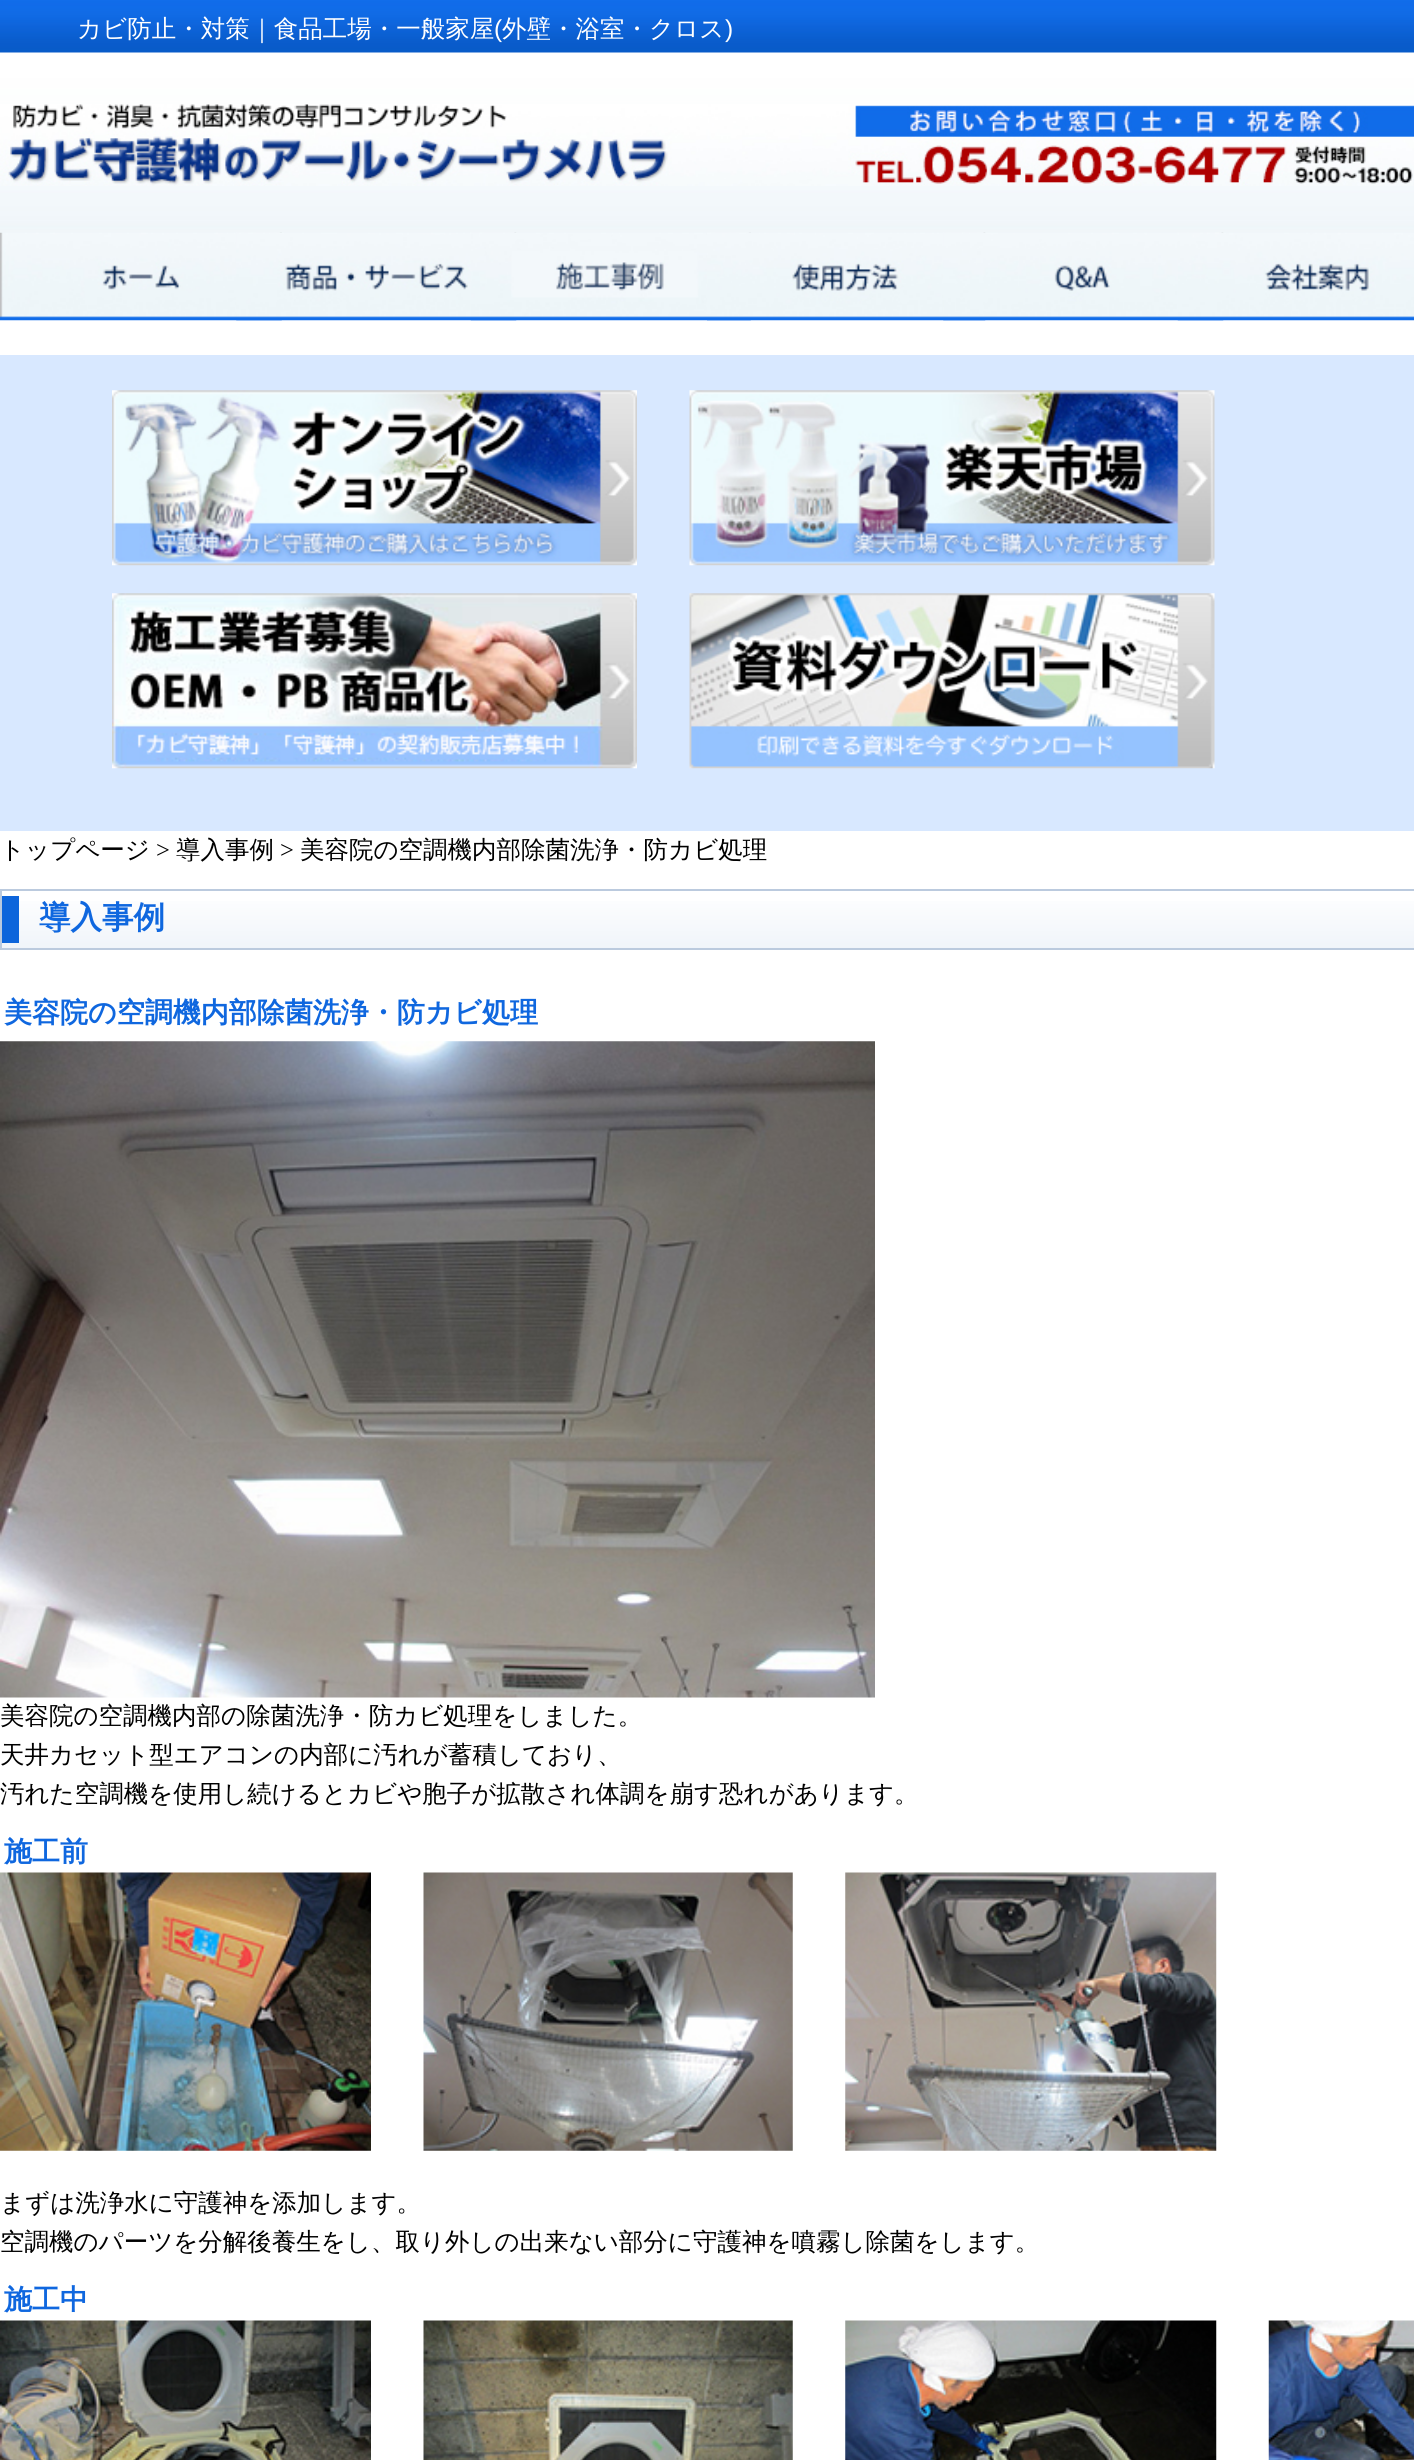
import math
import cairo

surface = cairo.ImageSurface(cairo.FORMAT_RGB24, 1414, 2460)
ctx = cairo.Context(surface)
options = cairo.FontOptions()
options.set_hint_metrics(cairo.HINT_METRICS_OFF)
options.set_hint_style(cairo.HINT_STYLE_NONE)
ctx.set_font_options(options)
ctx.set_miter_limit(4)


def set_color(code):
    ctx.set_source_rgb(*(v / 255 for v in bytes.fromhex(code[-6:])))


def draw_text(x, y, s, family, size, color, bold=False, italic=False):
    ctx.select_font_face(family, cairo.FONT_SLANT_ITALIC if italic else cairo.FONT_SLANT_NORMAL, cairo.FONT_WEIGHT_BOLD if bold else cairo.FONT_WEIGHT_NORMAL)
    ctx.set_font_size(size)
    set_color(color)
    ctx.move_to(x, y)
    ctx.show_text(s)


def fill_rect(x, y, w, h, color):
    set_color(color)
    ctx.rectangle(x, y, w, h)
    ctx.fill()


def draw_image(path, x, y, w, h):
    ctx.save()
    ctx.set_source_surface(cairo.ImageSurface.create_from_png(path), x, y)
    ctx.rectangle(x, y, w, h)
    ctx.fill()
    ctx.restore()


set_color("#ffffff")
ctx.paint()
draw_image("assets/img1.png", 0, 0, 1414, 233)
draw_text(77, 37, "カビ防止・対策｜食品工場・一般家屋", "WenQuanYi Zen Hei Medium", 24.5, "#ffffff")
draw_text(494, 37, "(", "Liberation Sans", 24.5, "#ffffff")
draw_text(502, 37, "外壁・浴室・クロス", "WenQuanYi Zen Hei Medium", 24.5, "#ffffff")
draw_text(725, 37, ")", "Liberation Sans", 24.5, "#ffffff")
draw_image("assets/img2.png", 0, 104, 1414, 82)
draw_image("assets/img3.png", 0, 232, 282, 89)
draw_image("assets/img4.png", 236, 232, 281, 89)
draw_image("assets/img5.png", 470, 232, 281, 89)
draw_image("assets/img6.png", 707, 232, 279, 89)
draw_image("assets/img7.png", 943, 232, 281, 89)
draw_image("assets/img8.png", 1177, 232, 237, 89)
fill_rect(0, 355, 1414, 476, "#d8e8ff")
draw_image("assets/img9.png", 112, 390, 525, 176)
draw_image("assets/img10.png", 689, 390, 526, 176)
draw_image("assets/img11.png", 112, 593, 525, 176)
draw_image("assets/img12.png", 689, 593, 526, 176)
draw_text(0, 858, "トップページ", "WenQuanYi Zen Hei Medium", 24.5, "#000000")
draw_text(156, 858, ">", "Liberation Serif", 24.5, "#000000")
draw_text(176, 858, "導入事例", "WenQuanYi Zen Hei Medium", 24.5, "#000000")
draw_text(280, 858, ">", "Liberation Serif", 24.5, "#000000")
draw_text(300, 858, "美容院の空調機内部除菌洗浄・防カビ処理", "WenQuanYi Zen Hei Medium", 24.5, "#000000")
gradient = cairo.LinearGradient(840, 891, 840, 949)
gradient.add_color_stop_rgba(0, 1, 1, 1, 1)
gradient.add_color_stop_rgba(1, 0.941, 0.957, 0.98, 1)
ctx.set_source(gradient)
ctx.rectangle(2, 901, 1412, 47)
ctx.fill()
ctx.rectangle(1, 890, 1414, 59)
set_color("#bbcade")
ctx.stroke()
fill_rect(2, 896, 17, 47, "#0d65db")
draw_text(39, 928, "導入事例", "WenQuanYi Zen Hei", 31.5, "#0f67df", bold=True)
draw_text(4, 1022, "美容院の空調機内部除菌洗浄・防カビ処理", "WenQuanYi Zen Hei", 28, "#0f67df", bold=True)
draw_image("assets/img13.png", 0, 1041, 875, 657)
draw_text(0, 1724, "美容院の空調機内部の除菌洗浄・防カビ処理をしました。", "WenQuanYi Zen Hei Medium", 24.5, "#000000")
draw_text(0, 1763, "天井カセット型エアコンの内部に汚れが蓄積しており、", "WenQuanYi Zen Hei Medium", 24.5, "#000000")
draw_text(0, 1802, "汚れた空調機を使用し続けるとカビや胞子が拡散され体調を崩す恐れがあります。", "WenQuanYi Zen Hei Medium", 24.5, "#000000")
draw_text(4, 1861, "施工前", "WenQuanYi Zen Hei", 28, "#0f67df", bold=True)
draw_image("assets/img14.png", 0, 1872, 371, 279)
draw_image("assets/img15.png", 423, 1872, 370, 279)
draw_image("assets/img16.png", 845, 1872, 372, 279)
draw_text(0, 2211, "まずは洗浄水に守護神を添加します。", "WenQuanYi Zen Hei Medium", 24.5, "#000000")
draw_text(0, 2250, "空調機のパーツを分解後養生をし、取り外しの出来ない部分に守護神を噴霧し除菌をします。", "WenQuanYi Zen Hei Medium", 24.5, "#000000")
draw_text(4, 2309, "施工中", "WenQuanYi Zen Hei", 28, "#0f67df", bold=True)
draw_image("assets/img17.png", 0, 2320, 371, 140)
draw_image("assets/img18.png", 423, 2320, 370, 140)
draw_image("assets/img19.png", 845, 2320, 372, 140)
draw_image("assets/img20.png", 1268, 2320, 146, 140)
surface.write_to_png("output.png")
